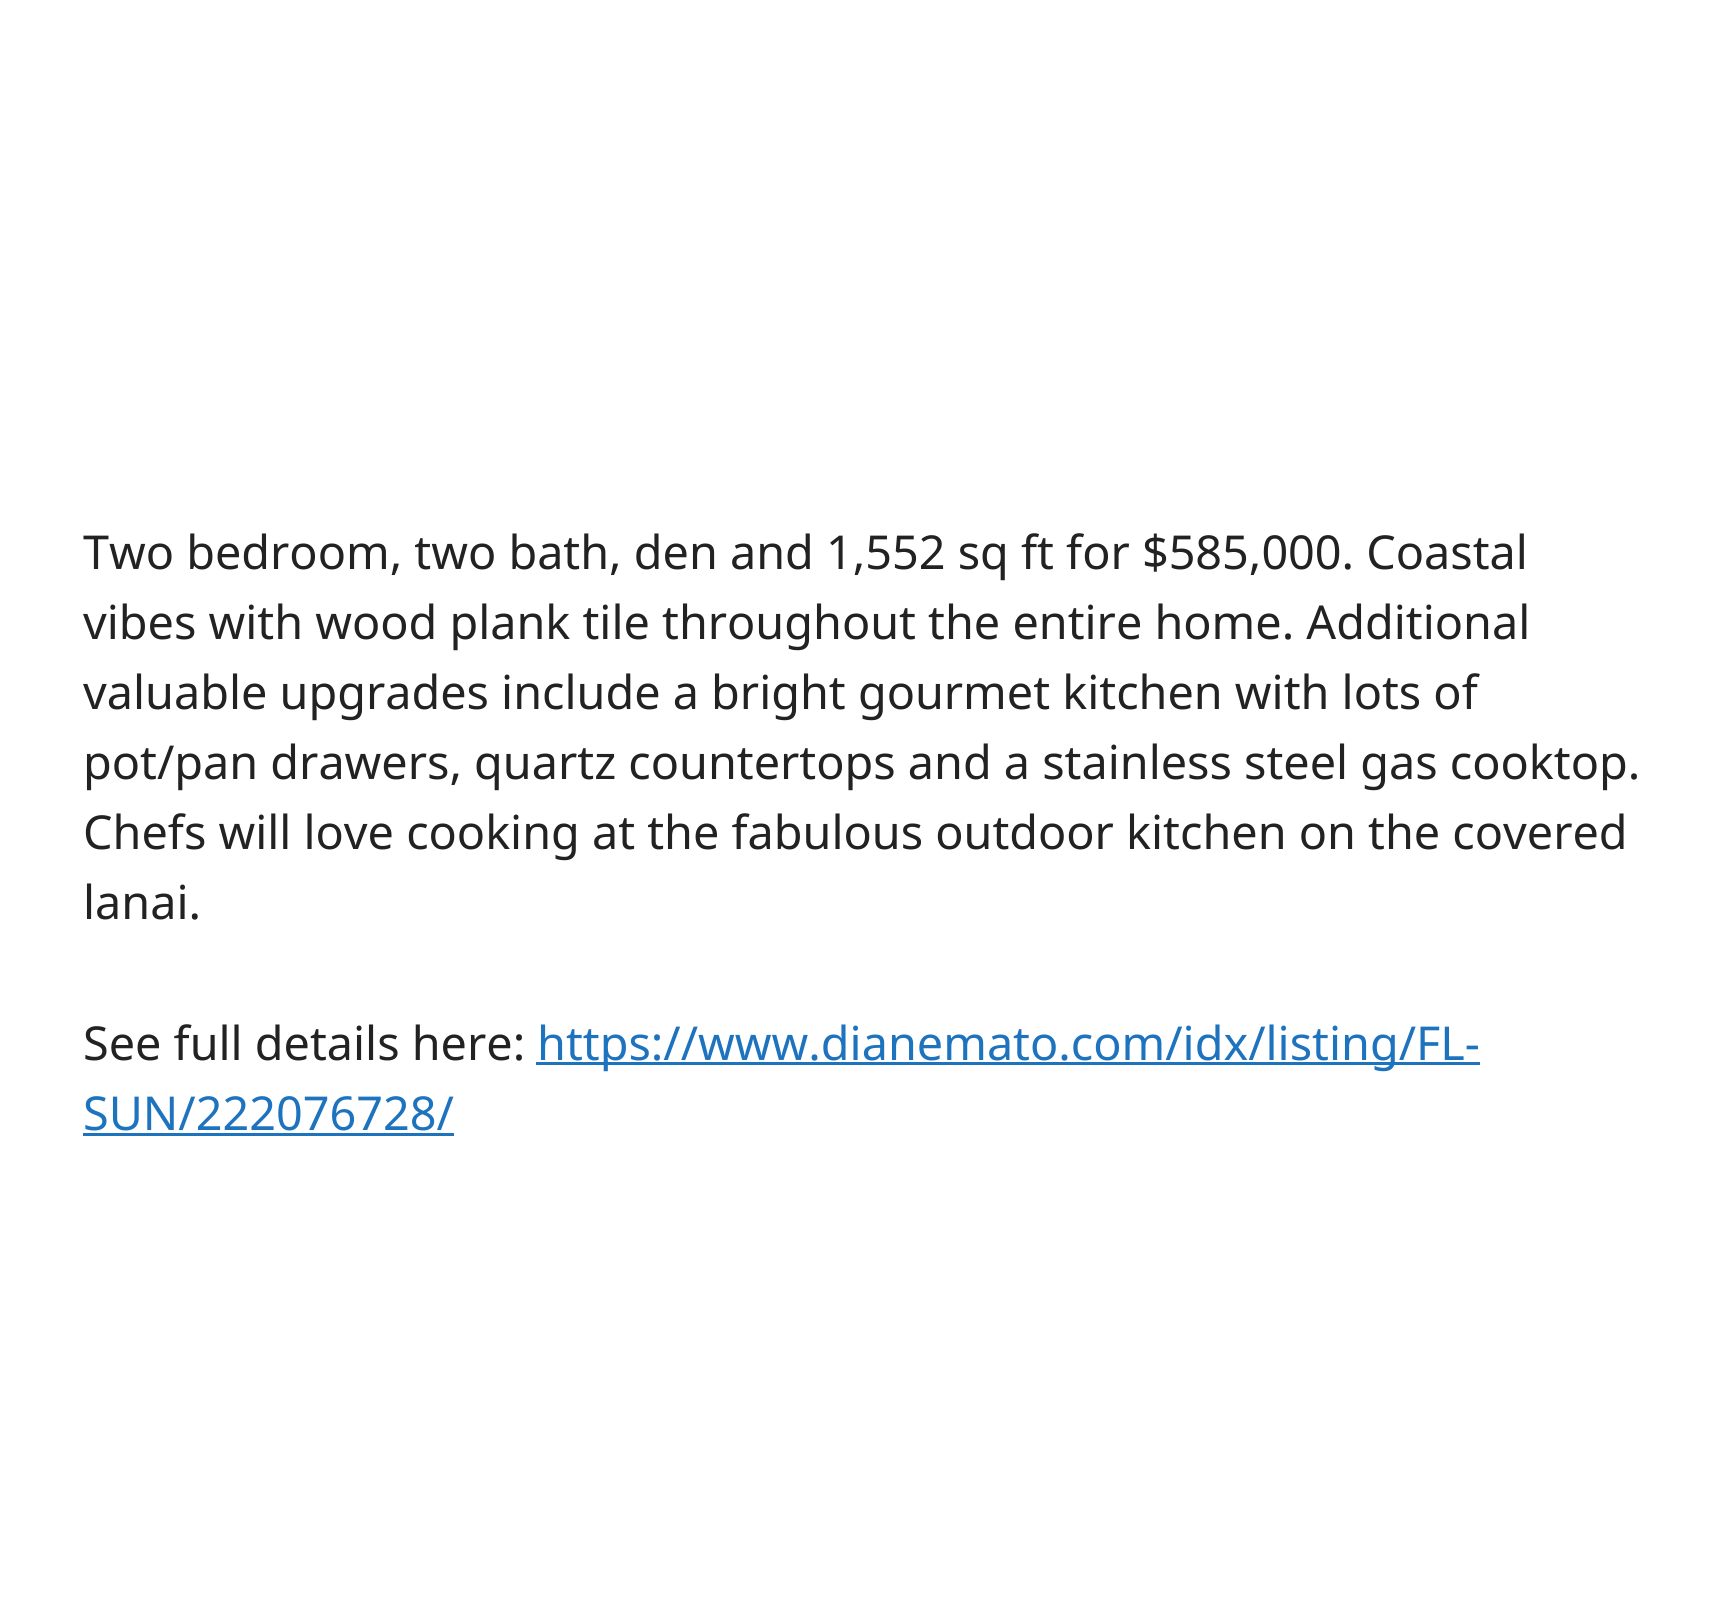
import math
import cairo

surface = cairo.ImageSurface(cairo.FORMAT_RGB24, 1728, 1612)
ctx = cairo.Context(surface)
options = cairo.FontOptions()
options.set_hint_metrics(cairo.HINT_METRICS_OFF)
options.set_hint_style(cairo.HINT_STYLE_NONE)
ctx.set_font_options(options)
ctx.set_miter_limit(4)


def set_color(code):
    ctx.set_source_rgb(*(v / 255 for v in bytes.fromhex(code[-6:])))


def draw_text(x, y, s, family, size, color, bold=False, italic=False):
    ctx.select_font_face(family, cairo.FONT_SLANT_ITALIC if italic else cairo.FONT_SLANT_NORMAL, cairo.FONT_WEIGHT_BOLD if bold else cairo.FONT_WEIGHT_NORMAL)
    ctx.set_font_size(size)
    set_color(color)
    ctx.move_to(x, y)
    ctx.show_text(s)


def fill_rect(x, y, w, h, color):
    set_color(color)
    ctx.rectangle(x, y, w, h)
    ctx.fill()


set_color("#ffffff")
ctx.paint()
draw_text(83, 569, "Two bedroom, two bath, den and 1,552 sq ft for $585,000. Coastal", "Noto Sans", 46.75, "#222222")
draw_text(83, 639, "vibes with wood plank tile throughout the entire home. Additional", "Noto Sans", 46.75, "#222222")
draw_text(83, 709, "valuable upgrades include a bright gourmet kitchen with lots of", "Noto Sans", 46.75, "#222222")
draw_text(83, 779, "pot/pan drawers, quartz countertops and a stainless steel gas cooktop.", "Noto Sans", 46.75, "#222222")
draw_text(83, 849, "Chefs will love cooking at the fabulous outdoor kitchen on the covered", "Noto Sans", 46.75, "#222222")
draw_text(83, 919, "lanai.", "Noto Sans", 46.75, "#222222")
draw_text(83, 1060, "See full details here:", "Noto Sans", 46.75, "#222222")
fill_rect(536, 1062, 944, 3, "#1e73be")
draw_text(537, 1060, "https://www.dianemato.com/idx/listing/FL-", "Noto Sans", 46.75, "#1e73be")
draw_text(83, 1130, "SUN/222076728/", "Noto Sans", 46.75, "#1e73be")
fill_rect(83, 1133, 371, 3, "#1e73be")
surface.write_to_png("output.png")
